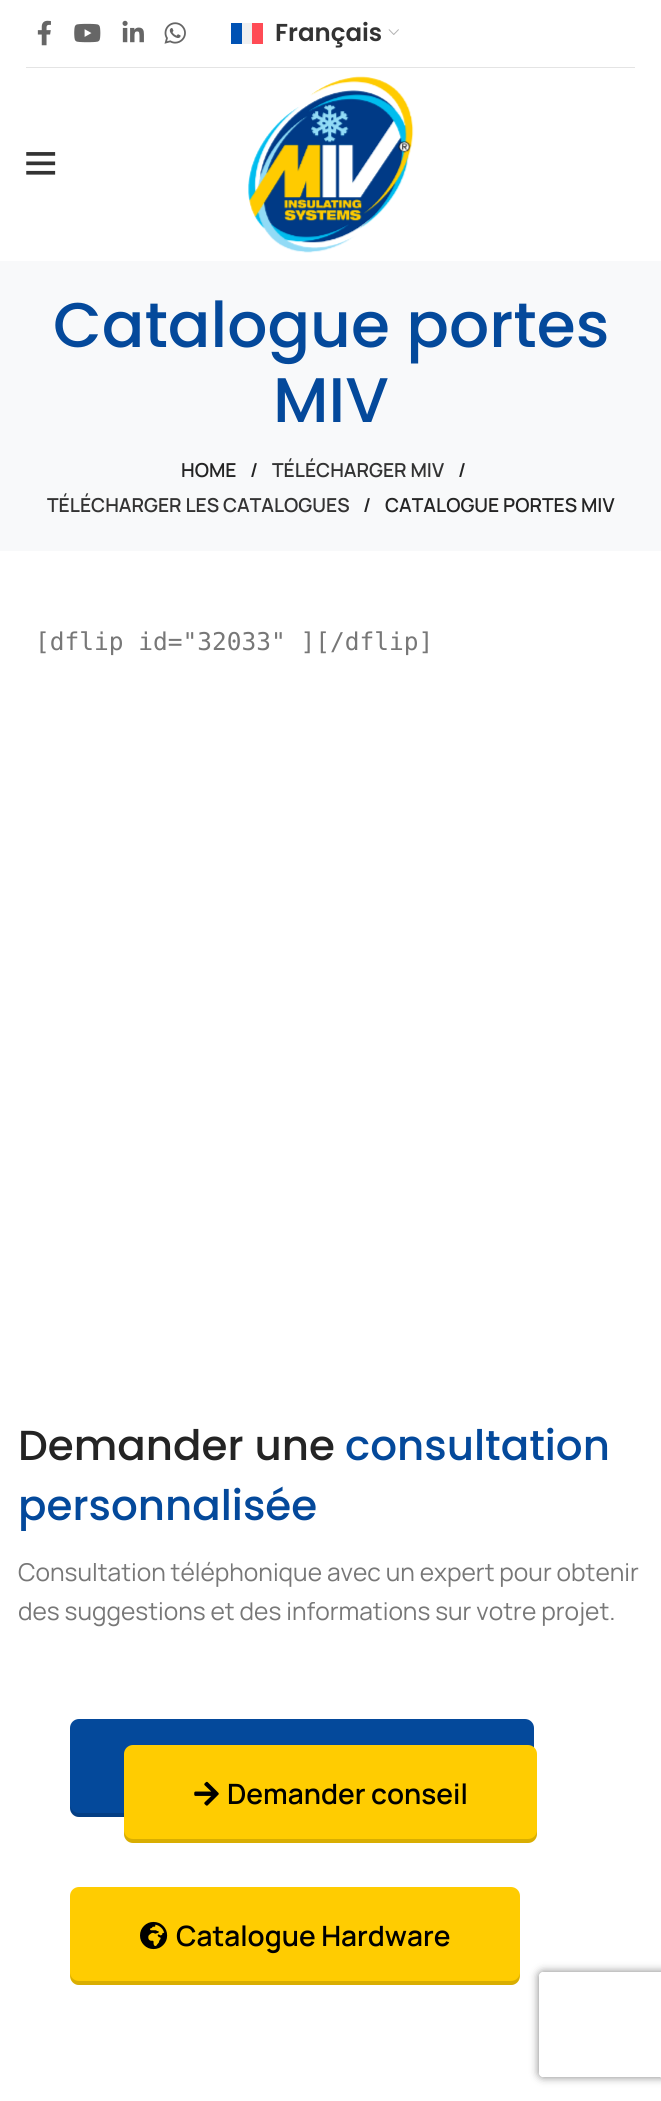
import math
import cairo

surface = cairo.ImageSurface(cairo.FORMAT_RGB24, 661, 2101)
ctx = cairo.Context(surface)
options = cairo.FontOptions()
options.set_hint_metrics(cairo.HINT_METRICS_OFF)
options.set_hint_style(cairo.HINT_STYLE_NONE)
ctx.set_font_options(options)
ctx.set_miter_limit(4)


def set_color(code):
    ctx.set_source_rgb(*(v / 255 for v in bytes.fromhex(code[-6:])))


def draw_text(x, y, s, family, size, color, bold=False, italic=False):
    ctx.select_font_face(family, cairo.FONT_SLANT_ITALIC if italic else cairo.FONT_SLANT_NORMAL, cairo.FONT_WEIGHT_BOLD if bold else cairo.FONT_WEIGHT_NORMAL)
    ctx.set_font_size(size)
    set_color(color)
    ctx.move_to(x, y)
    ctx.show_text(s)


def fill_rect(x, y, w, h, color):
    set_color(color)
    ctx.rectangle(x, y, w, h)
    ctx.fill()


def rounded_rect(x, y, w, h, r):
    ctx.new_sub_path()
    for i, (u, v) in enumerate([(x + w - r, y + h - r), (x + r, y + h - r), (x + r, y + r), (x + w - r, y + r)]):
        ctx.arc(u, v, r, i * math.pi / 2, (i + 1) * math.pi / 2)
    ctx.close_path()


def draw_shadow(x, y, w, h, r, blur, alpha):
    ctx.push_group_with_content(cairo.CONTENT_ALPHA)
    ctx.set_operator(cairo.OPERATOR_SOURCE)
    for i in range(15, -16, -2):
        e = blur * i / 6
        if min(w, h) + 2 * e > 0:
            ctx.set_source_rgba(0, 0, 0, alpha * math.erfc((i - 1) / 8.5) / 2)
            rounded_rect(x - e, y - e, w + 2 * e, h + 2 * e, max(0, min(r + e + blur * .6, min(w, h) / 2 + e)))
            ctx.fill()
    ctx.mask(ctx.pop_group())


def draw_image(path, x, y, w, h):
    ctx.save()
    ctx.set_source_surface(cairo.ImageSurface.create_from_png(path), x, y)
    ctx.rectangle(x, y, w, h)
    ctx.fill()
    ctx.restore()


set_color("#ffffff")
ctx.paint()
fill_rect(26, 67, 609, 1, "#e4e4e4")
draw_image("assets/img1.png", 37, 20, 14, 26)
draw_image("assets/img2.png", 74, 23, 27, 20)
draw_image("assets/img3.png", 122, 20, 22, 23)
draw_image("assets/img4.png", 164, 22, 22, 22)
fill_rect(242, 23, 10, 21, "#f0f0f0")
fill_rect(252, 23, 11, 21, "#ff4b55")
fill_rect(231, 23, 11, 21, "#0052b4")
draw_text(275, 41, "Français", "Poppins SemiBold", 24.5, "#333333")
draw_image("assets/img5.png", 388, 29, 11, 6)
draw_image("assets/img6.png", 26, 152, 30, 23)
draw_image("assets/img7.png", 248, 76, 166, 177)
fill_rect(0, 261, 661, 290, "#f8f9fa")
draw_text(53, 347, "Catalogue portes", "Poppins Medium", 63, "#04499b")
draw_text(273, 422, "MIV", "Poppins Medium", 63, "#04499b")
draw_text(181, 477, "HOME", "Manrope SemiBold", 19.25, "#242424")
draw_text(250, 477, "/", "Manrope SemiBold", 19.25, "#242424")
draw_text(272, 477, "TÉLÉCHARGER MIV", "Manrope SemiBold", 19.25, "#333333")
draw_text(458, 477, "/", "Manrope SemiBold", 19.25, "#242424")
draw_text(47, 512, "TÉLÉCHARGER LES CATALOGUES", "Manrope SemiBold", 19.25, "#333333")
draw_text(363, 512, "/", "Manrope SemiBold", 19.25, "#242424")
draw_text(385, 512, "CATALOGUE PORTES MIV", "Manrope SemiBold", 19.25, "#242424")
draw_text(35, 650, "[dflip id=\"32033\" ][/dflip]", "DejaVu Sans Mono", 24.5, "#777777")
draw_text(18, 1460, "Demander une", "Poppins Medium", 42, "#242424")
draw_text(345, 1460, "consultation", "Poppins Medium", 42, "#04499b")
draw_text(18, 1520, "personnalisée", "Poppins Medium", 42, "#04499b")
draw_text(18, 1581, "Consultation téléphonique avec un expert pour obtenir", "Manrope", 24.5, "#777777")
draw_text(18, 1620, "des suggestions et des informations sur votre projet.", "Manrope", 24.5, "#777777")
set_color("#04499b")
rounded_rect(70, 1719, 464, 98, 9)
ctx.fill()
ctx.set_source_rgba(0, 0, 0, 0.15)
ctx.new_path()
ctx.move_to(70, 1804)
ctx.curve_to(70, 1810, 71, 1815, 77, 1817)
ctx.line_to(527, 1817)
ctx.curve_to(533, 1815, 534, 1810, 534, 1804)
ctx.curve_to(534, 1809, 530, 1813, 525, 1813)
ctx.line_to(79, 1813)
ctx.curve_to(74, 1813, 70, 1809, 70, 1804)
ctx.close_path()
ctx.fill()
set_color("#ffcc01")
rounded_rect(70, 1887, 450, 98, 9)
ctx.fill()
ctx.set_source_rgba(0, 0, 0, 0.15)
ctx.new_path()
ctx.move_to(70, 1972)
ctx.curve_to(70, 1978, 71, 1983, 77, 1985)
ctx.line_to(513, 1985)
ctx.curve_to(519, 1983, 520, 1978, 520, 1972)
ctx.curve_to(520, 1977, 516, 1981, 511, 1981)
ctx.line_to(79, 1981)
ctx.curve_to(74, 1981, 70, 1977, 70, 1972)
ctx.close_path()
ctx.fill()
draw_image("assets/img8.png", 140, 1921, 28, 29)
draw_text(176, 1946, "Catalogue Hardware", "Manrope SemiBold", 28, "#000000")
set_color("#ffcc01")
rounded_rect(124, 1745, 413, 98, 9)
ctx.fill()
ctx.set_source_rgba(0, 0, 0, 0.15)
ctx.new_path()
ctx.move_to(124, 1830)
ctx.line_to(124, 1834)
ctx.curve_to(124, 1839, 128, 1843, 133, 1843)
ctx.line_to(528, 1843)
ctx.curve_to(533, 1843, 537, 1839, 537, 1834)
ctx.line_to(537, 1830)
ctx.curve_to(537, 1835, 533, 1839, 528, 1839)
ctx.line_to(133, 1839)
ctx.curve_to(128, 1839, 124, 1835, 124, 1830)
ctx.close_path()
ctx.fill()
draw_image("assets/img9.png", 194, 1781, 25, 25)
draw_text(227, 1804, "Demander conseil", "Manrope SemiBold", 28, "#000000")
ctx.save()
ctx.set_fill_rule(cairo.FILL_RULE_EVEN_ODD)
ctx.new_path()
ctx.move_to(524, 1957)
ctx.line_to(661, 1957)
ctx.line_to(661, 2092)
ctx.line_to(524, 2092)
ctx.close_path()
ctx.move_to(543, 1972)
ctx.line_to(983, 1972)
ctx.curve_to(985, 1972, 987, 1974, 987, 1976)
ctx.line_to(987, 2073)
ctx.curve_to(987, 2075, 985, 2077, 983, 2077)
ctx.line_to(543, 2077)
ctx.curve_to(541, 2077, 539, 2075, 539, 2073)
ctx.line_to(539, 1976)
ctx.curve_to(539, 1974, 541, 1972, 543, 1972)
ctx.close_path()
ctx.clip()
set_color("#808080")
draw_shadow(539, 1972, 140, 105, 4, 4.5, 1)
ctx.restore()
set_color("#ffffff")
rounded_rect(641, 2011, 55, 70, 35)
ctx.fill()
surface.write_to_png("output.png")
